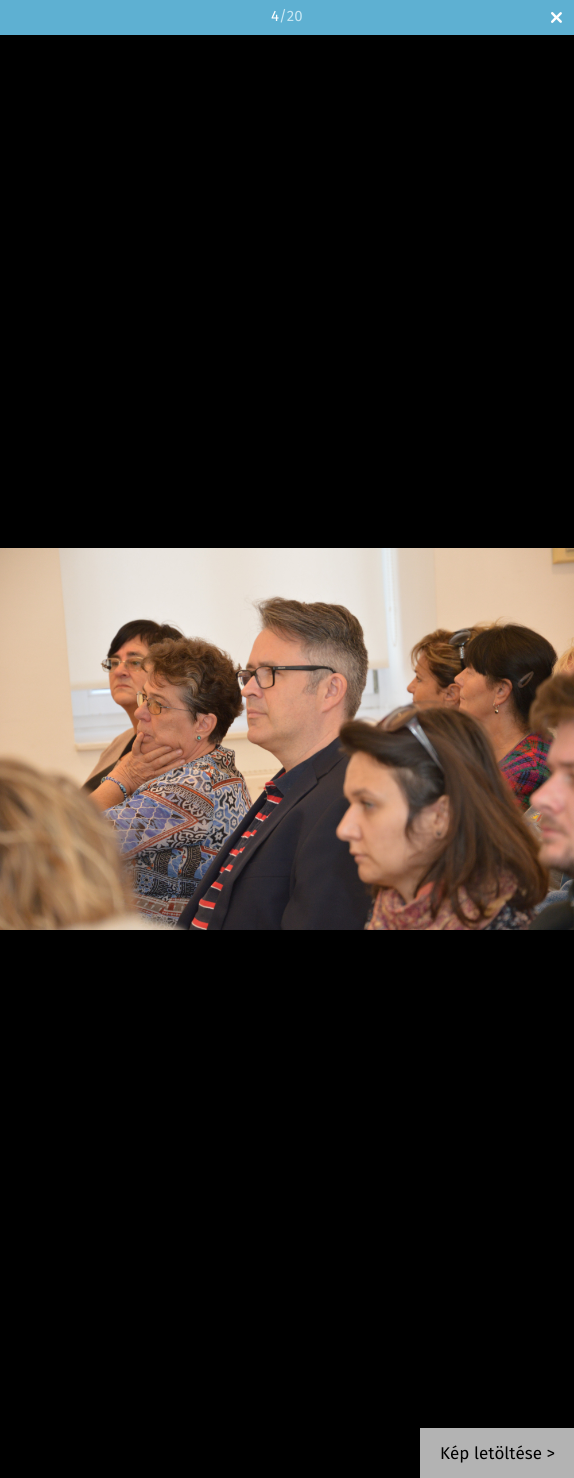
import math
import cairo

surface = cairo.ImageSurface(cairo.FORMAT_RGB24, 574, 1478)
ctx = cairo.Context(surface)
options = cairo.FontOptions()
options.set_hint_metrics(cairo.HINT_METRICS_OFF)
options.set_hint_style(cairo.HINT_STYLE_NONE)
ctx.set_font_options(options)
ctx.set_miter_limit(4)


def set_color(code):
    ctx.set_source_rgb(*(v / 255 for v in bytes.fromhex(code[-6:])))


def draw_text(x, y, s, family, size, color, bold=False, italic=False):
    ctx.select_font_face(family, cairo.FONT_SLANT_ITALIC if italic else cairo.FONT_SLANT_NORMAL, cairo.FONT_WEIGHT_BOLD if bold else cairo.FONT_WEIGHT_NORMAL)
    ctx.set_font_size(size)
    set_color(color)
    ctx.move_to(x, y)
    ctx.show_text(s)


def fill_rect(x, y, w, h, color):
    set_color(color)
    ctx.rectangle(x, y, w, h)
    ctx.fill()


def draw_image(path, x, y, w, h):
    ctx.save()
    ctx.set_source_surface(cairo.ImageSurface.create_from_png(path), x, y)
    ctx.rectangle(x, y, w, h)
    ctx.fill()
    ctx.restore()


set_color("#000000")
ctx.paint()
fill_rect(0, 0, 574, 35, "#5eb0d2")
draw_text(271, 21, "4", "Fira Sans", 15, "#ffffff")
draw_text(279, 21, "/20", "Fira Sans", 15, "#c6e6f3")
draw_image("assets/img1.png", 551, 12, 11, 11)
draw_image("assets/img2.png", 0, 548, 574, 382)
fill_rect(420, 1428, 154, 50, "#b3b3b3")
draw_text(440, 1459, "Kép letöltése >", "Fira Sans", 17, "#000000")
surface.write_to_png("output.png")
